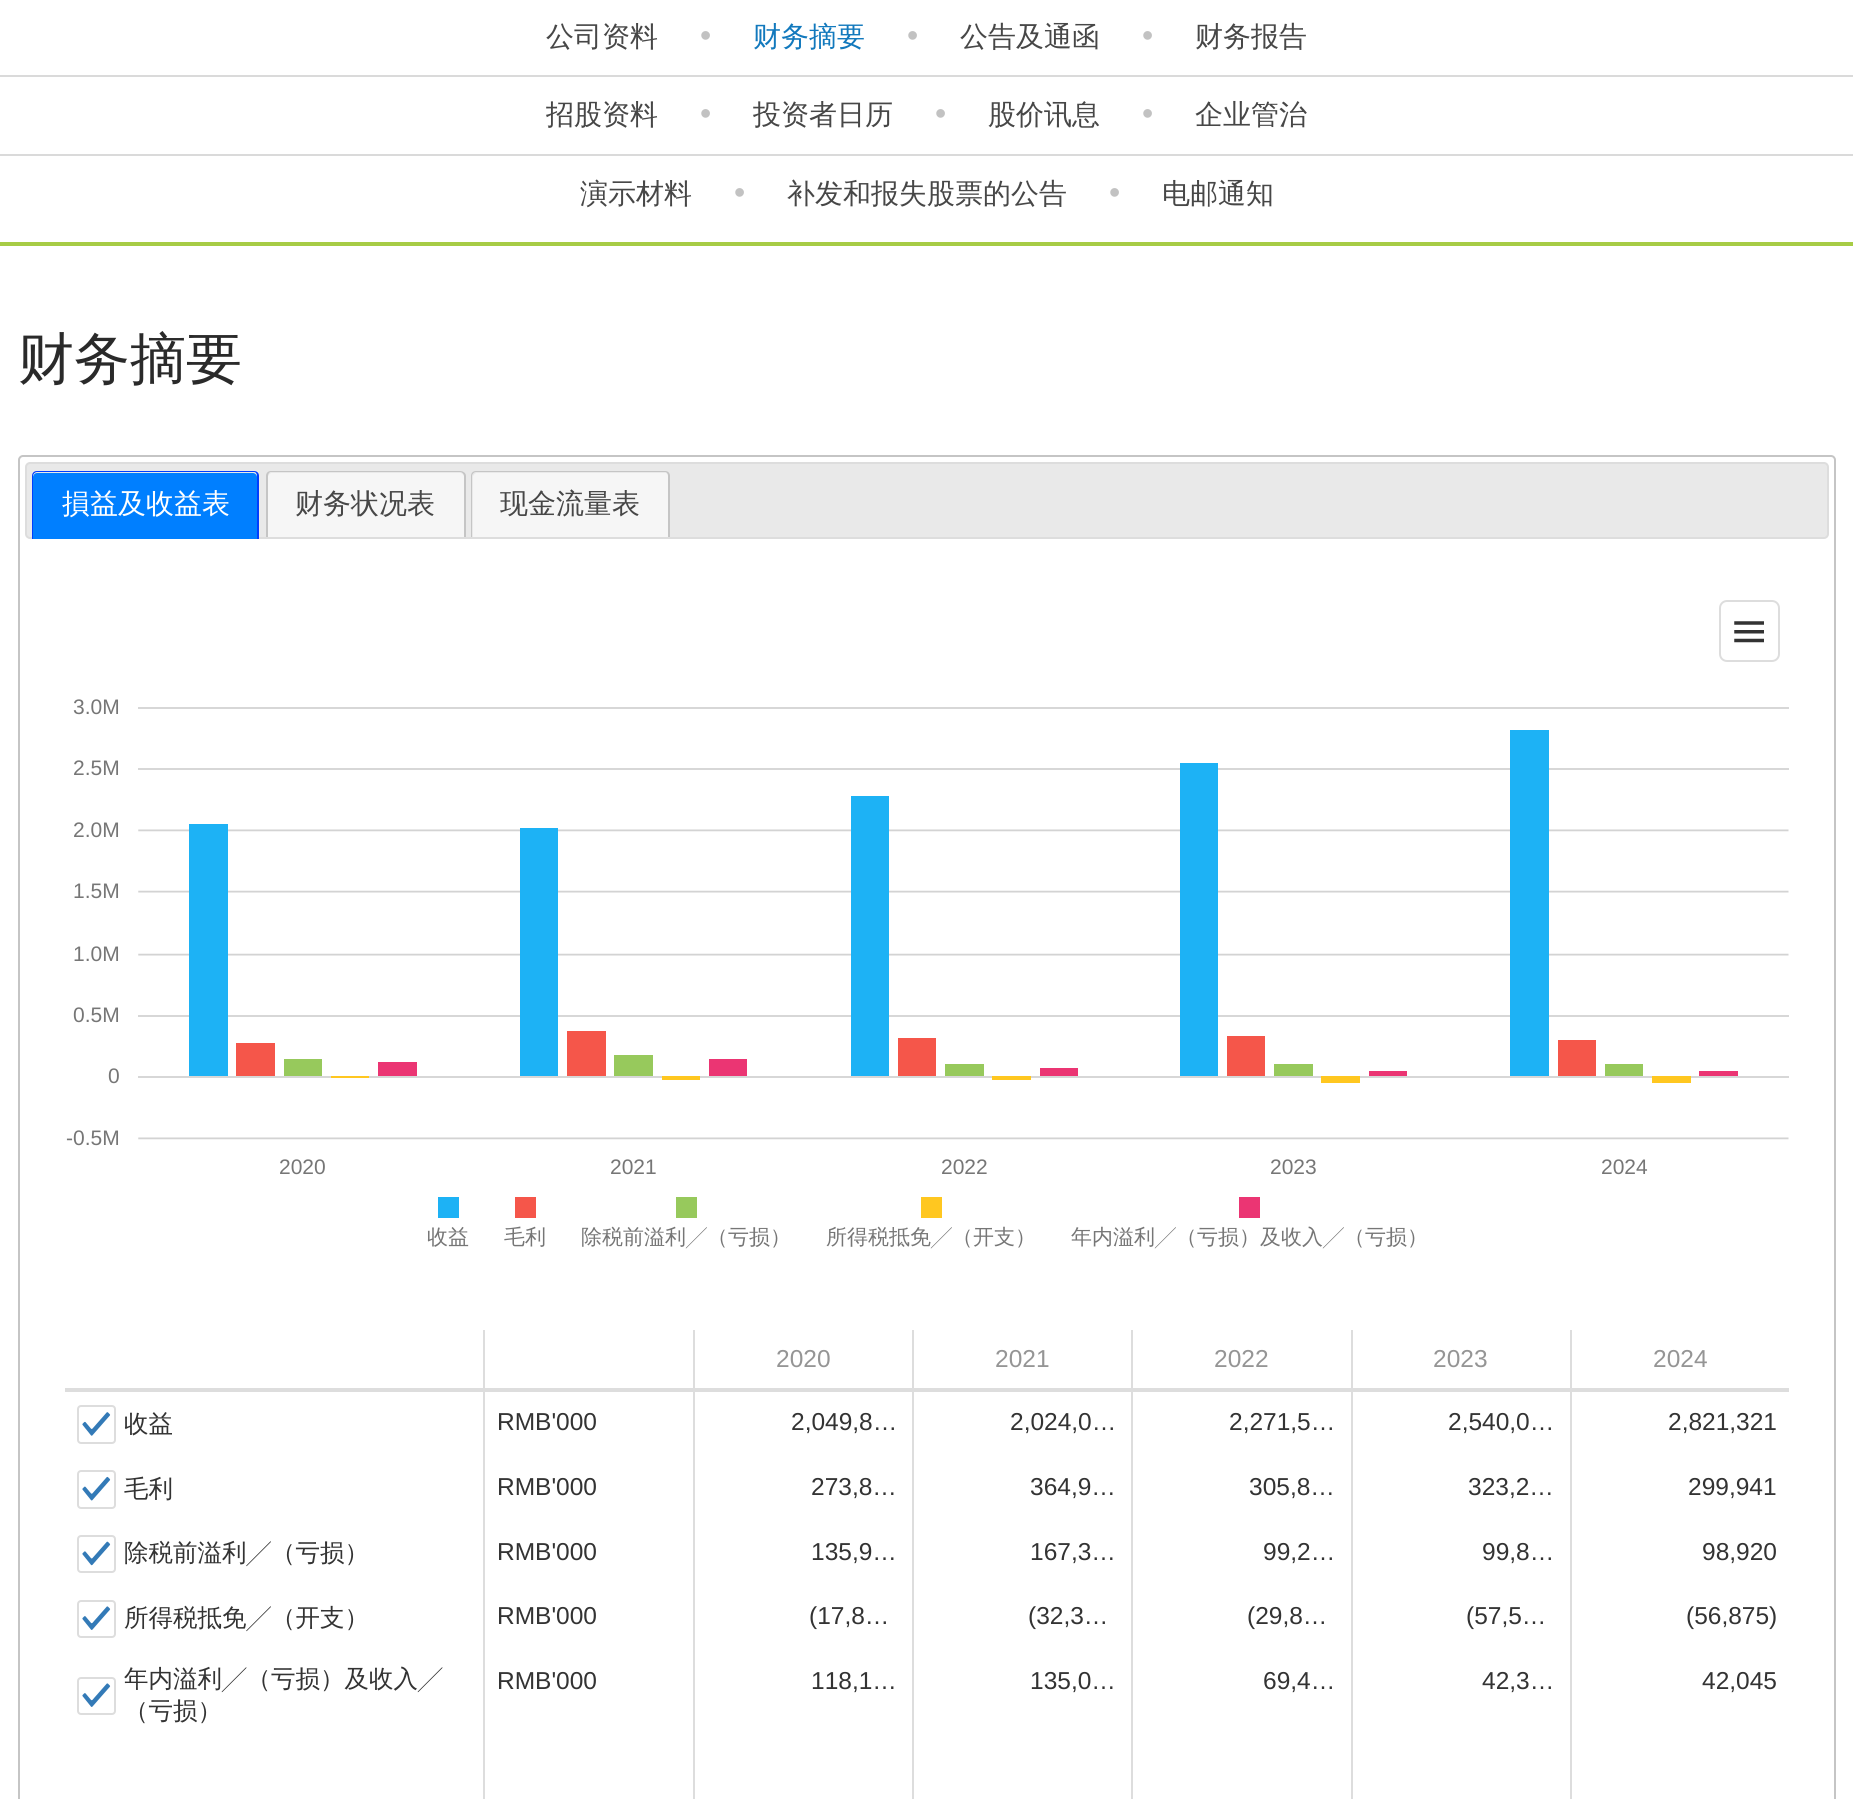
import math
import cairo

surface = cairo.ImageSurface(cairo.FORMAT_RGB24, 1853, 1799)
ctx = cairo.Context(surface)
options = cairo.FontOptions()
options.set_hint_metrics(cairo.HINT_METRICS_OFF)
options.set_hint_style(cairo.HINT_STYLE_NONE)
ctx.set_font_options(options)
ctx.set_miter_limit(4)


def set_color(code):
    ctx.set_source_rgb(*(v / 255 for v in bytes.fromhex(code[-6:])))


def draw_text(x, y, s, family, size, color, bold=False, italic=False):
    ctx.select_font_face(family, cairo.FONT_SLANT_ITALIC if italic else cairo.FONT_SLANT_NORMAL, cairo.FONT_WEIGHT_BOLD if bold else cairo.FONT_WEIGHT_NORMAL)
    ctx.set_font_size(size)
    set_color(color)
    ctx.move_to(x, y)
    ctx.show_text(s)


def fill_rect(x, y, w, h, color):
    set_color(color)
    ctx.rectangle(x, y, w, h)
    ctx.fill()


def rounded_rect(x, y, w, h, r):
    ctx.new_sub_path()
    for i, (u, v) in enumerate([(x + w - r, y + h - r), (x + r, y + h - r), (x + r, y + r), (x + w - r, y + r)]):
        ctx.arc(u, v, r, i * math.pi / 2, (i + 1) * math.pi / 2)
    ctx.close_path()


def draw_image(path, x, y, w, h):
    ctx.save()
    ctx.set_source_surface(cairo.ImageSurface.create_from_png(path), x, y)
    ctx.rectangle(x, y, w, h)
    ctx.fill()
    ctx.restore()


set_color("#ffffff")
ctx.paint()
fill_rect(0, 242, 1853, 4, "#a7cc45")
draw_text(546, 46, "公司资料", "WenQuanYi Zen Hei Medium", 28, "#474747")
draw_text(700, 46, "•", "Liberation Sans", 32, "#c2c2c2")
draw_text(753, 46, "财务摘要", "WenQuanYi Zen Hei Medium", 28, "#1279bd")
draw_text(907, 46, "•", "Liberation Sans", 32, "#c2c2c2")
draw_text(960, 46, "公告及通函", "WenQuanYi Zen Hei Medium", 28, "#474747")
draw_text(1142, 46, "•", "Liberation Sans", 32, "#c2c2c2")
draw_text(1195, 46, "财务报告", "WenQuanYi Zen Hei Medium", 28, "#474747")
fill_rect(0, 75, 1853, 2, "#dadada")
draw_text(546, 124, "招股资料", "WenQuanYi Zen Hei Medium", 28, "#474747")
draw_text(700, 124, "•", "Liberation Sans", 32, "#c2c2c2")
draw_text(753, 124, "投资者日历", "WenQuanYi Zen Hei Medium", 28, "#474747")
draw_text(935, 124, "•", "Liberation Sans", 32, "#c2c2c2")
draw_text(988, 124, "股价讯息", "WenQuanYi Zen Hei Medium", 28, "#474747")
draw_text(1142, 124, "•", "Liberation Sans", 32, "#c2c2c2")
draw_text(1195, 124, "企业管治", "WenQuanYi Zen Hei Medium", 28, "#474747")
fill_rect(0, 154, 1853, 2, "#dadada")
draw_text(580, 203, "演示材料", "WenQuanYi Zen Hei Medium", 28, "#474747")
draw_text(734, 203, "•", "Liberation Sans", 32, "#c2c2c2")
draw_text(787, 203, "补发和报失股票的公告", "WenQuanYi Zen Hei Medium", 28, "#474747")
draw_text(1109, 203, "•", "Liberation Sans", 32, "#c2c2c2")
draw_text(1162, 203, "电邮通知", "WenQuanYi Zen Hei Medium", 28, "#474747")
draw_text(18, 378, "财务摘要", "WenQuanYi Zen Hei Medium", 56, "#2a2a2a")
rounded_rect(19, 456, 1816, 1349, 4)
set_color("#c5c5c5")
ctx.stroke()
set_color("#e9e9e9")
rounded_rect(26, 463, 1802, 75, 4)
ctx.fill_preserve()
set_color("#dddddd")
ctx.stroke()
set_color("#007fff")
ctx.new_path()
ctx.move_to(37, 473)
ctx.line_to(253, 473)
ctx.curve_to(255, 473, 257, 475, 257, 477)
ctx.line_to(257, 539)
ctx.line_to(33, 539)
ctx.line_to(33, 477)
ctx.curve_to(33, 475, 35, 473, 37, 473)
ctx.close_path()
ctx.fill()
set_color("#003eff")
ctx.set_fill_rule(cairo.FILL_RULE_EVEN_ODD)
ctx.new_path()
ctx.move_to(37, 471)
ctx.line_to(254, 471)
ctx.curve_to(257, 471, 259, 473, 259, 476)
ctx.line_to(259, 539)
ctx.line_to(32, 539)
ctx.line_to(32, 476)
ctx.curve_to(32, 473, 34, 471, 37, 471)
ctx.close_path()
ctx.move_to(37, 472)
ctx.line_to(254, 472)
ctx.curve_to(256, 472, 257, 474, 257, 476)
ctx.line_to(257, 539)
ctx.line_to(33, 539)
ctx.line_to(33, 476)
ctx.curve_to(33, 474, 35, 472, 37, 472)
ctx.close_path()
ctx.fill()
draw_text(62, 513, "損益及收益表", "WenQuanYi Zen Hei Medium", 28, "#ffffff")
set_color("#f6f6f6")
ctx.new_path()
ctx.move_to(272, 473)
ctx.line_to(460, 473)
ctx.curve_to(462, 473, 464, 475, 464, 477)
ctx.line_to(464, 537)
ctx.line_to(268, 537)
ctx.line_to(268, 477)
ctx.curve_to(268, 475, 270, 473, 272, 473)
ctx.close_path()
ctx.fill()
set_color("#c5c5c5")
ctx.new_path()
ctx.move_to(271, 471)
ctx.line_to(460, 471)
ctx.curve_to(463, 471, 466, 473, 466, 476)
ctx.line_to(466, 537)
ctx.line_to(266, 537)
ctx.line_to(266, 476)
ctx.curve_to(266, 473, 268, 471, 271, 471)
ctx.close_path()
ctx.move_to(271, 472)
ctx.line_to(460, 472)
ctx.curve_to(462, 472, 464, 474, 464, 476)
ctx.line_to(464, 537)
ctx.line_to(268, 537)
ctx.line_to(268, 476)
ctx.curve_to(268, 474, 269, 472, 271, 472)
ctx.close_path()
ctx.fill()
draw_text(295, 513, "财务状况表", "WenQuanYi Zen Hei Medium", 28, "#474747")
set_color("#f6f6f6")
ctx.new_path()
ctx.move_to(477, 473)
ctx.line_to(665, 473)
ctx.curve_to(667, 473, 669, 475, 669, 477)
ctx.line_to(669, 537)
ctx.line_to(473, 537)
ctx.line_to(473, 477)
ctx.curve_to(473, 475, 475, 473, 477, 473)
ctx.close_path()
ctx.fill()
set_color("#c5c5c5")
ctx.new_path()
ctx.move_to(476, 471)
ctx.line_to(665, 471)
ctx.curve_to(668, 471, 670, 473, 670, 476)
ctx.line_to(670, 537)
ctx.line_to(471, 537)
ctx.line_to(471, 476)
ctx.curve_to(471, 473, 473, 471, 476, 471)
ctx.close_path()
ctx.move_to(476, 472)
ctx.line_to(665, 472)
ctx.curve_to(667, 472, 668, 474, 668, 476)
ctx.line_to(668, 537)
ctx.line_to(472, 537)
ctx.line_to(472, 476)
ctx.curve_to(472, 474, 474, 472, 476, 472)
ctx.close_path()
ctx.fill()
draw_text(500, 513, "现金流量表", "WenQuanYi Zen Hei Medium", 28, "#474747")
draw_image("assets/img1.png", 138, 600, 1651, 618)
draw_text(73, 714, "3.0M", "Liberation Sans", 21, "#767676")
draw_text(73, 775, "2.5M", "Liberation Sans", 21, "#767676")
draw_text(73, 837, "2.0M", "Liberation Sans", 21, "#767676")
draw_text(73, 898, "1.5M", "Liberation Sans", 21, "#767676")
draw_text(73, 961, "1.0M", "Liberation Sans", 21, "#767676")
draw_text(73, 1022, "0.5M", "Liberation Sans", 21, "#767676")
draw_text(108, 1083, "0", "Liberation Sans", 21, "#767676")
draw_text(66, 1145, "-0.5M", "Liberation Sans", 21, "#767676")
draw_text(279, 1174, "2020", "Liberation Sans", 21, "#767676")
draw_text(610, 1174, "2021", "Liberation Sans", 21, "#767676")
draw_text(941, 1174, "2022", "Liberation Sans", 21, "#767676")
draw_text(1270, 1174, "2023", "Liberation Sans", 21, "#767676")
draw_text(1601, 1174, "2024", "Liberation Sans", 21, "#767676")
draw_text(427, 1244, "收益", "WenQuanYi Zen Hei Medium", 21, "#767676")
draw_text(504, 1244, "毛利", "WenQuanYi Zen Hei Medium", 21, "#767676")
draw_text(581, 1244, "除税前溢利╱（亏损）", "WenQuanYi Zen Hei Medium", 21, "#767676")
draw_text(826, 1244, "所得税抵免╱（开支）", "WenQuanYi Zen Hei Medium", 21, "#767676")
draw_text(1071, 1244, "年内溢利╱（亏损）及收入╱（亏损）", "WenQuanYi Zen Hei Medium", 21, "#767676")
fill_rect(65, 1388, 1724, 4, "#dddddd")
fill_rect(483, 1330, 2, 60, "#dddddd")
fill_rect(693, 1330, 2, 60, "#dddddd")
draw_text(776, 1367, "2020", "Liberation Sans", 24.5, "#959595")
fill_rect(912, 1330, 2, 60, "#dddddd")
draw_text(995, 1367, "2021", "Liberation Sans", 24.5, "#959595")
fill_rect(1131, 1330, 2, 60, "#dddddd")
draw_text(1214, 1367, "2022", "Liberation Sans", 24.5, "#959595")
fill_rect(1351, 1330, 2, 60, "#dddddd")
draw_text(1433, 1367, "2023", "Liberation Sans", 24.5, "#959595")
fill_rect(1570, 1330, 2, 60, "#dddddd")
draw_text(1653, 1367, "2024", "Liberation Sans", 24.5, "#959595")
fill_rect(483, 1391, 2, 408, "#dddddd")
fill_rect(693, 1391, 2, 408, "#dddddd")
fill_rect(912, 1391, 2, 408, "#dddddd")
fill_rect(1131, 1391, 2, 408, "#dddddd")
fill_rect(1351, 1391, 2, 408, "#dddddd")
fill_rect(1570, 1391, 2, 408, "#dddddd")
rounded_rect(78, 1406, 37, 37, 3)
ctx.stroke()
draw_image("assets/img2.png", 82, 1412, 29, 24)
draw_text(124, 1432, "收益", "WenQuanYi Zen Hei Medium", 24.5, "#333333")
draw_text(497, 1430, "RMB'000", "Liberation Sans", 24.5, "#333333")
draw_text(791, 1430, "2,049,8…", "Liberation Sans", 24.5, "#333333")
draw_text(1010, 1430, "2,024,0…", "Liberation Sans", 24.5, "#333333")
draw_text(1229, 1430, "2,271,5…", "Liberation Sans", 24.5, "#333333")
draw_text(1448, 1430, "2,540,0…", "Liberation Sans", 24.5, "#333333")
draw_text(1668, 1430, "2,821,321", "Liberation Sans", 24.5, "#333333")
rounded_rect(78, 1471, 37, 37, 3)
set_color("#dddddd")
ctx.stroke()
draw_image("assets/img3.png", 82, 1476, 29, 25)
draw_text(124, 1497, "毛利", "WenQuanYi Zen Hei Medium", 24.5, "#333333")
draw_text(497, 1495, "RMB'000", "Liberation Sans", 24.5, "#333333")
draw_text(811, 1495, "273,8…", "Liberation Sans", 24.5, "#333333")
draw_text(1030, 1495, "364,9…", "Liberation Sans", 24.5, "#333333")
draw_text(1249, 1495, "305,8…", "Liberation Sans", 24.5, "#333333")
draw_text(1468, 1495, "323,2…", "Liberation Sans", 24.5, "#333333")
draw_text(1688, 1495, "299,941", "Liberation Sans", 24.5, "#333333")
rounded_rect(78, 1536, 37, 36, 3)
set_color("#dddddd")
ctx.stroke()
draw_image("assets/img4.png", 82, 1541, 29, 25)
draw_text(124, 1561, "除税前溢利╱（亏损）", "WenQuanYi Zen Hei Medium", 24.5, "#333333")
draw_text(497, 1560, "RMB'000", "Liberation Sans", 24.5, "#333333")
draw_text(811, 1560, "135,9…", "Liberation Sans", 24.5, "#333333")
draw_text(1030, 1560, "167,3…", "Liberation Sans", 24.5, "#333333")
draw_text(1263, 1560, "99,2…", "Liberation Sans", 24.5, "#333333")
draw_text(1482, 1560, "99,8…", "Liberation Sans", 24.5, "#333333")
draw_text(1702, 1560, "98,920", "Liberation Sans", 24.5, "#333333")
rounded_rect(78, 1601, 37, 36, 3)
set_color("#dddddd")
ctx.stroke()
draw_image("assets/img5.png", 82, 1606, 29, 24)
draw_text(124, 1626, "所得税抵免╱（开支）", "WenQuanYi Zen Hei Medium", 24.5, "#333333")
draw_text(497, 1624, "RMB'000", "Liberation Sans", 24.5, "#333333")
draw_text(809, 1624, "(17,8…", "Liberation Sans", 24.5, "#333333")
draw_text(1028, 1624, "(32,3…", "Liberation Sans", 24.5, "#333333")
draw_text(1247, 1624, "(29,8…", "Liberation Sans", 24.5, "#333333")
draw_text(1466, 1624, "(57,5…", "Liberation Sans", 24.5, "#333333")
draw_text(1686, 1624, "(56,875)", "Liberation Sans", 24.5, "#333333")
rounded_rect(78, 1678, 37, 36, 3)
set_color("#dddddd")
ctx.stroke()
draw_image("assets/img5.png", 82, 1683, 29, 24)
draw_text(124, 1687, "年内溢利╱（亏损）及收入╱", "WenQuanYi Zen Hei Medium", 24.5, "#333333")
draw_text(124, 1719, "（亏损）", "WenQuanYi Zen Hei Medium", 24.5, "#333333")
draw_text(497, 1689, "RMB'000", "Liberation Sans", 24.5, "#333333")
draw_text(811, 1689, "118,1…", "Liberation Sans", 24.5, "#333333")
draw_text(1030, 1689, "135,0…", "Liberation Sans", 24.5, "#333333")
draw_text(1263, 1689, "69,4…", "Liberation Sans", 24.5, "#333333")
draw_text(1482, 1689, "42,3…", "Liberation Sans", 24.5, "#333333")
draw_text(1702, 1689, "42,045", "Liberation Sans", 24.5, "#333333")
surface.write_to_png("output.png")
